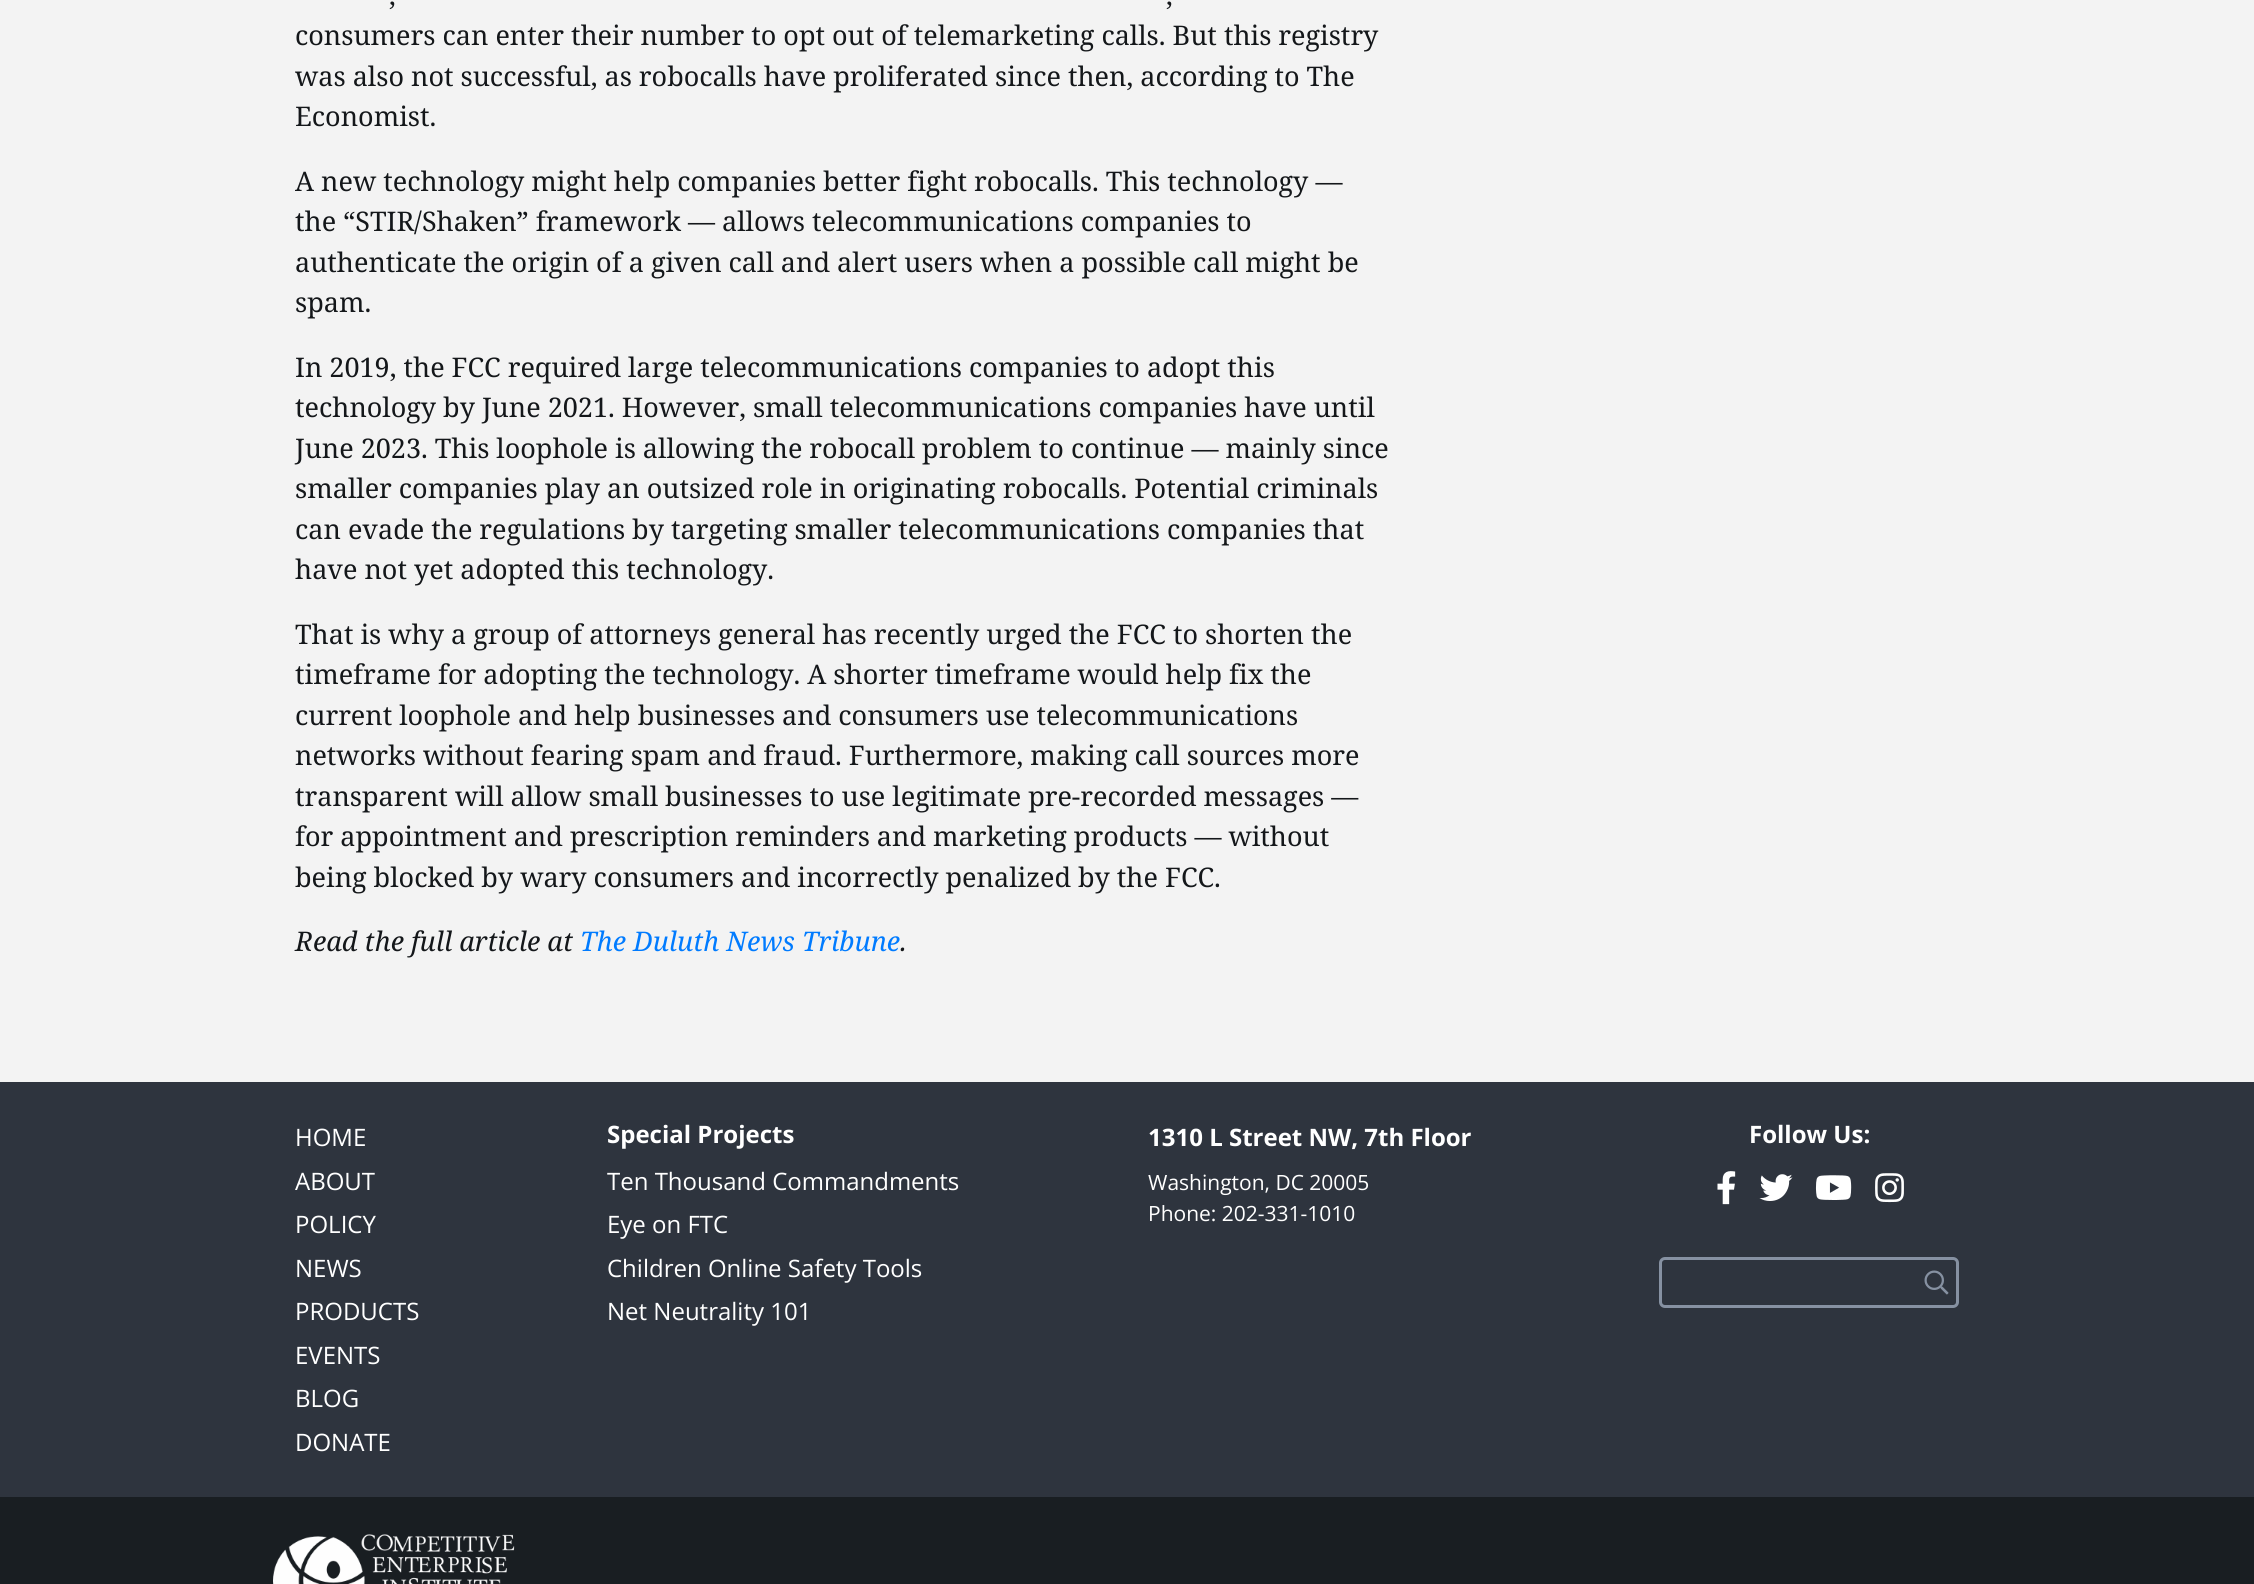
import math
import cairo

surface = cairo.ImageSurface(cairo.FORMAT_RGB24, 2254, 1584)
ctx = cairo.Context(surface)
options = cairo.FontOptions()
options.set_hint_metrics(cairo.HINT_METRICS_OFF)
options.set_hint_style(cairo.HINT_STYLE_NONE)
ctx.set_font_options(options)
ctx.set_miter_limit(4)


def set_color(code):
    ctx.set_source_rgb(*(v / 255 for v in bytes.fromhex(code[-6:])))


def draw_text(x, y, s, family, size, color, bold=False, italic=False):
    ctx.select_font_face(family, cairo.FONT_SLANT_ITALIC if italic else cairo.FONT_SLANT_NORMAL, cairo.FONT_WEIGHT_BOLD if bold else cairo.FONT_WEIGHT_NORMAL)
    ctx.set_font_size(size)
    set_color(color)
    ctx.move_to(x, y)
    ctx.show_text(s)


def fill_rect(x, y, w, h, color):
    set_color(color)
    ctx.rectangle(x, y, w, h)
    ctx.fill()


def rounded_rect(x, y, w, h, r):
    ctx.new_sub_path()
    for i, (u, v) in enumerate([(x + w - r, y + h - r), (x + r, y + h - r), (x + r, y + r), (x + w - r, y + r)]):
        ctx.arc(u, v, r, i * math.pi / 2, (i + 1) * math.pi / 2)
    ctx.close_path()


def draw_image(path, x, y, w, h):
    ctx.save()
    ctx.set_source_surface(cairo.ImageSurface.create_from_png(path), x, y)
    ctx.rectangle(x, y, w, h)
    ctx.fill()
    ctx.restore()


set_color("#f3f3f3")
ctx.paint()
draw_text(389, 5, ",", "Noto Serif", 27, "#14171a")
draw_text(1166, 5, ",", "Noto Serif", 27, "#14171a")
draw_text(295, 45, "consumers can enter their number to opt out of telemarketing calls. But this registry", "Noto Serif", 27, "#14171a")
draw_text(295, 86, "was also not successful, as robocalls have proliferated since then, according to The", "Noto Serif", 27, "#14171a")
draw_text(295, 126, "Economist.", "Noto Serif", 27, "#14171a")
draw_text(295, 191, "A new technology might help companies better fight robocalls. This technology —", "Noto Serif", 27, "#14171a")
draw_text(295, 231, "the “STIR/Shaken” framework — allows telecommunications companies to", "Noto Serif", 27, "#14171a")
draw_text(295, 272, "authenticate the origin of a given call and alert users when a possible call might be", "Noto Serif", 27, "#14171a")
draw_text(295, 312, "spam.", "Noto Serif", 27, "#14171a")
draw_text(295, 377, "In 2019, the FCC required large telecommunications companies to adopt this", "Noto Serif", 27, "#14171a")
draw_text(295, 417, "technology by June 2021. However, small telecommunications companies have until", "Noto Serif", 27, "#14171a")
draw_text(295, 458, "June 2023. This loophole is allowing the robocall problem to continue — mainly since", "Noto Serif", 27, "#14171a")
draw_text(295, 498, "smaller companies play an outsized role in originating robocalls. Potential criminals", "Noto Serif", 27, "#14171a")
draw_text(295, 539, "can evade the regulations by targeting smaller telecommunications companies that", "Noto Serif", 27, "#14171a")
draw_text(295, 579, "have not yet adopted this technology.", "Noto Serif", 27, "#14171a")
draw_text(295, 644, "That is why a group of attorneys general has recently urged the FCC to shorten the", "Noto Serif", 27, "#14171a")
draw_text(295, 684, "timeframe for adopting the technology. A shorter timeframe would help fix the", "Noto Serif", 27, "#14171a")
draw_text(295, 725, "current loophole and help businesses and consumers use telecommunications", "Noto Serif", 27, "#14171a")
draw_text(295, 765, "networks without fearing spam and fraud. Furthermore, making call sources more", "Noto Serif", 27, "#14171a")
draw_text(295, 806, "transparent will allow small businesses to use legitimate pre-recorded messages —", "Noto Serif", 27, "#14171a")
draw_text(295, 846, "for appointment and prescription reminders and marketing products — without", "Noto Serif", 27, "#14171a")
draw_text(295, 887, "being blocked by wary consumers and incorrectly penalized by the FCC.", "Noto Serif", 27, "#14171a")
draw_text(295, 951, "Read the full article at", "Noto Serif", 27, "#14171a", italic=True)
draw_text(580, 951, "The Duluth News Tribune", "Noto Serif", 27, "#007bff", italic=True)
draw_text(900, 951, ".", "Noto Serif", 27, "#14171a", italic=True)
fill_rect(0, 1082, 2254, 415, "#2e343e")
draw_text(295, 1146, "HOME", "Open Sans", 24, "#ffffff")
draw_text(295, 1190, "ABOUT", "Open Sans", 24, "#ffffff")
draw_text(295, 1233, "POLICY", "Open Sans", 24, "#ffffff")
draw_text(295, 1277, "NEWS", "Open Sans", 24, "#ffffff")
draw_text(295, 1320, "PRODUCTS", "Open Sans", 24, "#ffffff")
draw_text(295, 1364, "EVENTS", "Open Sans", 24, "#ffffff")
draw_text(295, 1407, "BLOG", "Open Sans", 24, "#ffffff")
draw_text(295, 1451, "DONATE", "Open Sans", 24, "#ffffff")
draw_text(607, 1143, "Special Projects", "Open Sans", 24, "#ffffff", bold=True)
draw_text(607, 1190, "Ten Thousand Commandments", "Open Sans", 24, "#ffffff")
draw_text(607, 1233, "Eye on FTC", "Open Sans", 24, "#ffffff")
draw_text(607, 1277, "Children Online Safety Tools", "Open Sans", 24, "#ffffff")
draw_text(607, 1320, "Net Neutrality 101", "Open Sans", 24, "#ffffff")
draw_text(1148, 1146, "1310 L Street NW, 7th Floor", "Open Sans", 24, "#ffffff", bold=True)
draw_text(1148, 1190, "Washington, DC 20005", "Open Sans", 21, "#ffffff")
draw_text(1148, 1221, "Phone: 202-331-1010", "Open Sans", 21, "#ffffff")
draw_text(1749, 1143, "Follow Us:", "Open Sans", 24, "#ffffff", bold=True)
draw_image("assets/img1.png", 1717, 1171, 19, 34)
draw_image("assets/img2.png", 1759, 1174, 34, 27)
draw_image("assets/img3.png", 1815, 1175, 37, 25)
draw_image("assets/img4.png", 1875, 1173, 29, 30)
rounded_rect(1660.5, 1258.5, 297, 48, 4.5)
set_color("#8691a2")
ctx.set_line_width(3)
ctx.stroke()
draw_image("assets/img5.png", 1924, 1270, 25, 25)
fill_rect(0, 1497, 2254, 87, "#191e22")
draw_image("assets/img6.png", 273, 1534, 242, 50)
surface.write_to_png("output.png")
